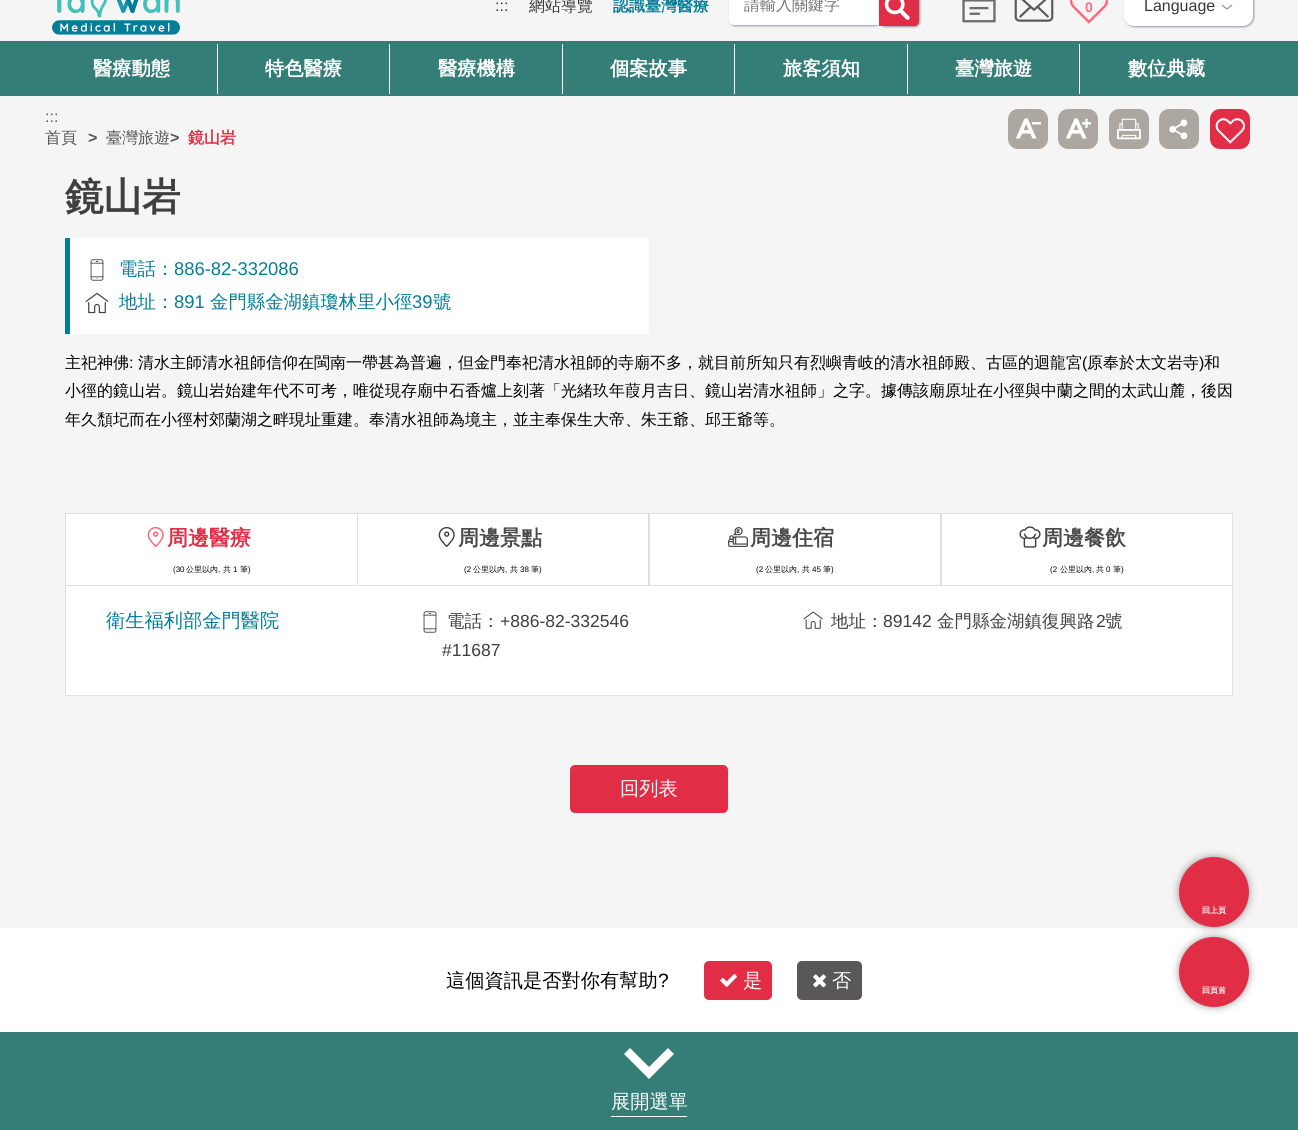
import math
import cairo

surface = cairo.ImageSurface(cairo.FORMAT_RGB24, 1298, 1130)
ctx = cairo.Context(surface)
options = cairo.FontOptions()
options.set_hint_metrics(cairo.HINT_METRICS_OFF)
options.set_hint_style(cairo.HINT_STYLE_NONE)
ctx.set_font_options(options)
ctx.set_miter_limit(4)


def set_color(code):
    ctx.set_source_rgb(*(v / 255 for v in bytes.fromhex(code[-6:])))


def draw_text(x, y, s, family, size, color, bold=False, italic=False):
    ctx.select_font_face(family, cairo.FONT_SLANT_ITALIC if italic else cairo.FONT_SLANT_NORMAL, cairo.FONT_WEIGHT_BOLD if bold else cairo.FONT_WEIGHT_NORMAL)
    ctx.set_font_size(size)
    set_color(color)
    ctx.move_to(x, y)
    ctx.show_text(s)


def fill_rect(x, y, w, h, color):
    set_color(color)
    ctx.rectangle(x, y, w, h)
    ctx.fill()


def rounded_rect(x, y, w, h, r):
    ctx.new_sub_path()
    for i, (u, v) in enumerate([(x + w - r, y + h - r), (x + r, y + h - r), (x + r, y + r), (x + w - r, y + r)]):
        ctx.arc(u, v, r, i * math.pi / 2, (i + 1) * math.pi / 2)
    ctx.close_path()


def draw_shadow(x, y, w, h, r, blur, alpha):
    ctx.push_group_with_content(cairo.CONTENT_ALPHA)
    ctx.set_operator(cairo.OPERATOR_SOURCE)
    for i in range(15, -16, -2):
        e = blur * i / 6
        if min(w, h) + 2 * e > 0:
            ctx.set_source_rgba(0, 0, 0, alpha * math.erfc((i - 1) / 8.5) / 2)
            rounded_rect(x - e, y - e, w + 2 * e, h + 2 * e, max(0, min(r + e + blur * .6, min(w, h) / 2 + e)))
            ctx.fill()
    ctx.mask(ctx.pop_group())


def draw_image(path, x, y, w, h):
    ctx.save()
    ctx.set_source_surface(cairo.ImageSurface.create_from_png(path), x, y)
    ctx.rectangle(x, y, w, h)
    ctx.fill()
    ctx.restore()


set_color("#f5f5f5")
ctx.paint()
draw_image("assets/img1.png", 52, 0, 128, 35)
draw_text(495, 11, ":::", "Liberation Sans", 16, "#383838")
draw_text(529, 11, "網站導覽", "WenQuanYi Zen Hei Medium", 16, "#383838")
draw_text(613, 11, "認識臺灣醫療", "WenQuanYi Zen Hei", 16, "#047d99", bold=True)
set_color("#333366")
draw_shadow(730, -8, 150, 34, 5, 1, 0.5)
set_color("#ffffff")
ctx.new_path()
ctx.move_to(734, -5)
ctx.line_to(879, -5)
ctx.line_to(879, 25)
ctx.line_to(734, 25)
ctx.curve_to(731, 25, 729, 23, 729, 20)
ctx.line_to(729, 0)
ctx.curve_to(729, -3, 731, -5, 734, -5)
ctx.close_path()
ctx.fill()
draw_text(744, 10, "請輸入關鍵字", "WenQuanYi Zen Hei Medium", 16, "#757575")
set_color("#333366")
draw_shadow(880, -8, 40, 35, 5, 1, 0.5)
set_color("#e12d45")
ctx.new_path()
ctx.move_to(879, -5)
ctx.line_to(914, -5)
ctx.curve_to(917, -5, 919, -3, 919, 0)
ctx.line_to(919, 21)
ctx.curve_to(919, 24, 917, 26, 914, 26)
ctx.line_to(879, 26)
ctx.close_path()
ctx.fill()
draw_image("assets/img2.png", 884, 0, 26, 20)
draw_image("assets/img3.png", 962, 0, 34, 23)
draw_image("assets/img4.png", 1014, 0, 40, 22)
draw_image("assets/img5.png", 1069, 0, 40, 24)
draw_text(1085, 12, "0", "Liberation Sans", 14, "#fe6e83", bold=True)
set_color("#333366")
draw_shadow(1125, -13, 129, 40, 10, 1, 0.5)
set_color("#ffffff")
rounded_rect(1124, -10, 129, 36, 10)
ctx.fill()
draw_text(1144, 11, "Language", "Liberation Sans", 16, "#383838")
ctx.new_path()
ctx.move_to(1232, 5)
ctx.line_to(1227, 9)
ctx.line_to(1222, 5)
set_color("#929292")
ctx.set_line_width(1.2)
ctx.stroke()
fill_rect(0, 41, 1298, 55, "#357e77")
fill_rect(217, 44, 1, 50, "#ffffff")
draw_text(93, 75, "醫療動態", "WenQuanYi Zen Hei", 19.25, "#ffffff", bold=True)
fill_rect(389, 44, 1, 50, "#ffffff")
draw_text(265, 75, "特色醫療", "WenQuanYi Zen Hei", 19.25, "#ffffff", bold=True)
fill_rect(562, 44, 1, 50, "#ffffff")
draw_text(438, 75, "醫療機構", "WenQuanYi Zen Hei", 19.25, "#ffffff", bold=True)
fill_rect(734, 44, 1, 50, "#ffffff")
draw_text(610, 75, "個案故事", "WenQuanYi Zen Hei", 19.25, "#ffffff", bold=True)
fill_rect(907, 44, 1, 50, "#ffffff")
draw_text(783, 75, "旅客須知", "WenQuanYi Zen Hei", 19.25, "#ffffff", bold=True)
fill_rect(1079, 44, 1, 50, "#ffffff")
draw_text(955, 75, "臺灣旅遊", "WenQuanYi Zen Hei", 19.25, "#ffffff", bold=True)
draw_text(1128, 75, "數位典藏", "WenQuanYi Zen Hei", 19.25, "#ffffff", bold=True)
draw_text(45, 122, ":::", "Liberation Sans", 16, "#555555")
draw_text(45, 143, "首頁", "WenQuanYi Zen Hei Medium", 16, "#555555")
draw_text(88, 143, ">", "Liberation Sans", 16, "#555555", bold=True)
draw_text(106, 143, "臺灣旅遊", "WenQuanYi Zen Hei Medium", 16, "#555555")
draw_text(170, 143, ">", "Liberation Sans", 16, "#555555", bold=True)
draw_text(188, 143, "鏡山岩", "WenQuanYi Zen Hei", 16, "#e12d45", bold=True)
set_color("#aca8a1")
rounded_rect(1008, 109, 40, 40, 10)
ctx.fill()
draw_image("assets/img6.png", 1015, 118, 26, 21)
rounded_rect(1058, 109, 40, 40, 10)
ctx.fill()
draw_image("assets/img7.png", 1065, 118, 26, 21)
rounded_rect(1109, 109, 40, 40, 10)
ctx.fill()
draw_image("assets/img8.png", 1117, 118, 24, 22)
rounded_rect(1159, 109, 40, 40, 10)
ctx.fill()
draw_image("assets/img9.png", 1169, 119, 19, 21)
set_color("#e12d45")
rounded_rect(1210, 109, 40, 40, 10)
ctx.fill()
draw_image("assets/img10.png", 1215, 118, 30, 26)
draw_text(65, 210, "鏡山岩", "WenQuanYi Zen Hei", 38.5, "#3f3f3f", bold=True)
fill_rect(70, 238, 579, 96, "#ffffff")
fill_rect(65, 238, 5, 96, "#047d99")
draw_image("assets/img11.png", 90, 259, 14, 22)
draw_text(119, 275, "電話：", "WenQuanYi Zen Hei Medium", 18.4, "#047d99")
draw_text(174, 275, "886-82-332086", "Liberation Sans", 18.4, "#047d99")
draw_image("assets/img12.png", 85, 292, 24, 22)
draw_text(119, 308, "地址：", "WenQuanYi Zen Hei Medium", 18.4, "#047d99")
draw_text(174, 308, "891", "Liberation Sans", 18.4, "#047d99")
draw_text(210, 308, "金門縣金湖鎮瓊林里小徑", "WenQuanYi Zen Hei Medium", 18.4, "#047d99")
draw_text(412, 308, "39", "Liberation Sans", 18.4, "#047d99")
draw_text(433, 308, "號", "WenQuanYi Zen Hei Medium", 18.4, "#047d99")
draw_text(65, 368, "主祀神佛", "WenQuanYi Zen Hei Medium", 16, "#000000")
draw_text(129, 368, ":", "Liberation Sans", 16, "#000000")
draw_text(138, 368, "清水主師清水祖師信仰在閩南一帶甚為普遍，但金門奉祀清水祖師的寺廟不多，就目前所知只有烈嶼青岐的清水祖師殿、古區的迴龍宮", "WenQuanYi Zen Hei Medium", 16, "#000000")
draw_text(1082, 368, "(", "Liberation Sans", 16, "#000000")
draw_text(1087, 368, "原奉於太文岩寺", "WenQuanYi Zen Hei Medium", 16, "#000000")
draw_text(1199, 368, ")", "Liberation Sans", 16, "#000000")
draw_text(1204, 368, "和", "WenQuanYi Zen Hei Medium", 16, "#000000")
draw_text(65, 396, "小徑的鏡山岩。鏡山岩始建年代不可考，唯從現存廟中石香爐上刻著「光緒玖年葭月吉日、鏡山岩清水祖師」之字。據傳該廟原址在小徑與中蘭之間的太武山麓，後因", "WenQuanYi Zen Hei Medium", 16, "#000000")
draw_text(65, 425, "年久頹圮而在小徑村郊蘭湖之畔現址重建。奉清水祖師為境主，並主奉保生大帝、朱王爺、邱王爺等。", "WenQuanYi Zen Hei Medium", 16, "#000000")
fill_rect(66, 514, 291, 71, "#ffffff")
fill_rect(65, 513, 292, 1, "#e0e0e0")
fill_rect(65, 513, 1, 73, "#e0e0e0")
draw_image("assets/img13.png", 147, 526, 17, 21)
draw_text(167, 545, "周邊醫療", "WenQuanYi Zen Hei", 21, "#e12d45", bold=True)
draw_text(173, 572, "(30", "Liberation Sans", 8, "#000000")
draw_text(186, 572, "公里以內", "WenQuanYi Zen Hei Medium", 8, "#000000")
draw_text(218, 572, ",", "Liberation Sans", 8, "#000000")
draw_text(223, 572, "共", "WenQuanYi Zen Hei Medium", 8, "#000000")
draw_text(233, 572, "1", "Liberation Sans", 8, "#000000")
draw_text(240, 572, "筆", "WenQuanYi Zen Hei Medium", 8, "#000000")
draw_text(248, 572, ")", "Liberation Sans", 8, "#000000")
set_color("#ffffff")
ctx.rectangle(357.5, 513.5, 291, 72)
ctx.fill_preserve()
set_color("#e0e0e0")
ctx.set_line_width(1)
ctx.stroke()
set_color("#ffffff")
ctx.rectangle(649.5, 513.5, 291, 72)
ctx.fill_preserve()
set_color("#e0e0e0")
ctx.stroke()
set_color("#ffffff")
ctx.rectangle(941.5, 513.5, 291, 72)
ctx.fill_preserve()
set_color("#e0e0e0")
ctx.stroke()
set_color("#ffffff")
ctx.rectangle(65.5, 585.5, 1167, 110)
ctx.fill_preserve()
set_color("#e0e0e0")
ctx.stroke()
draw_text(106, 627, "衛生福利部金門醫院", "WenQuanYi Zen Hei Medium", 19.25, "#047d99")
draw_image("assets/img11.png", 423, 611, 14, 22)
draw_text(447, 627, "電話：", "WenQuanYi Zen Hei Medium", 17.5, "#3f3f3f")
draw_text(500, 627, "+886-82-332546", "Liberation Sans", 17.5, "#3f3f3f")
draw_text(442, 656, "#11687", "Liberation Sans", 17.5, "#3f3f3f")
draw_image("assets/img14.png", 803, 611, 20, 18)
draw_text(831, 627, "地址：", "WenQuanYi Zen Hei Medium", 17.5, "#3f3f3f")
draw_text(883, 627, "89142", "Liberation Sans", 17.5, "#3f3f3f")
draw_text(937, 627, "金門縣金湖鎮復興路", "WenQuanYi Zen Hei Medium", 17.5, "#3f3f3f")
draw_text(1096, 627, "2", "Liberation Sans", 17.5, "#3f3f3f")
draw_text(1105, 627, "號", "WenQuanYi Zen Hei Medium", 17.5, "#3f3f3f")
draw_image("assets/img15.png", 438, 526, 17, 21)
draw_text(458, 545, "周邊景點", "WenQuanYi Zen Hei", 21, "#4a4a4a", bold=True)
draw_text(464, 572, "(2", "Liberation Sans", 8, "#000000")
draw_text(473, 572, "公里以內", "WenQuanYi Zen Hei Medium", 8, "#000000")
draw_text(505, 572, ",", "Liberation Sans", 8, "#000000")
draw_text(510, 572, "共", "WenQuanYi Zen Hei Medium", 8, "#000000")
draw_text(520, 572, "38", "Liberation Sans", 8, "#000000")
draw_text(531, 572, "筆", "WenQuanYi Zen Hei Medium", 8, "#000000")
draw_text(539, 572, ")", "Liberation Sans", 8, "#000000")
draw_image("assets/img16.png", 728, 527, 20, 20)
draw_text(750, 545, "周邊住宿", "WenQuanYi Zen Hei", 21, "#4a4a4a", bold=True)
draw_text(756, 572, "(2", "Liberation Sans", 8, "#000000")
draw_text(765, 572, "公里以內", "WenQuanYi Zen Hei Medium", 8, "#000000")
draw_text(797, 572, ",", "Liberation Sans", 8, "#000000")
draw_text(802, 572, "共", "WenQuanYi Zen Hei Medium", 8, "#000000")
draw_text(812, 572, "45", "Liberation Sans", 8, "#000000")
draw_text(823, 572, "筆", "WenQuanYi Zen Hei Medium", 8, "#000000")
draw_text(831, 572, ")", "Liberation Sans", 8, "#000000")
draw_image("assets/img17.png", 1019, 526, 22, 22)
draw_text(1042, 545, "周邊餐飲", "WenQuanYi Zen Hei", 21, "#4a4a4a", bold=True)
draw_text(1050, 572, "(2", "Liberation Sans", 8, "#000000")
draw_text(1060, 572, "公里以內", "WenQuanYi Zen Hei Medium", 8, "#000000")
draw_text(1092, 572, ",", "Liberation Sans", 8, "#000000")
draw_text(1096, 572, "共", "WenQuanYi Zen Hei Medium", 8, "#000000")
draw_text(1106, 572, "0", "Liberation Sans", 8, "#000000")
draw_text(1113, 572, "筆", "WenQuanYi Zen Hei Medium", 8, "#000000")
draw_text(1121, 572, ")", "Liberation Sans", 8, "#000000")
set_color("#e12d45")
rounded_rect(570, 765, 158, 48, 5)
ctx.fill()
draw_text(620, 795, "回列表", "WenQuanYi Zen Hei Medium", 19.25, "#ffffff")
fill_rect(0, 928, 1298, 104, "#ffffff")
draw_text(446, 987, "這個資訊是否對你有幫助", "WenQuanYi Zen Hei Medium", 19.25, "#000000")
draw_text(658, 987, "?", "Liberation Sans", 19.25, "#000000")
set_color("#e12d45")
rounded_rect(704, 961, 68, 39, 5)
ctx.fill()
draw_image("assets/img18.png", 720, 974, 17, 13)
draw_text(743, 987, "是", "WenQuanYi Zen Hei Medium", 19.25, "#ffffff")
set_color("#595757")
rounded_rect(797, 961, 65, 39, 5)
ctx.fill()
draw_image("assets/img19.png", 813, 974, 13, 14)
draw_text(832, 987, "否", "WenQuanYi Zen Hei Medium", 19.25, "#ffffff")
set_color("#000000")
draw_shadow(1179, 857, 70, 70, 35, 4, 0.4)
set_color("#e12d45")
ctx.arc(1214, 892, 35, 0, 2 * math.pi)
ctx.fill()
draw_text(1202, 913, "回上頁", "WenQuanYi Zen Hei", 8, "#ffffff", bold=True)
set_color("#000000")
draw_shadow(1179, 937, 70, 70, 35, 4, 0.4)
set_color("#e12d45")
ctx.arc(1214, 972, 35, 0, 2 * math.pi)
ctx.fill()
draw_text(1202, 993, "回頁首", "WenQuanYi Zen Hei", 8, "#ffffff", bold=True)
fill_rect(0, 1032, 1298, 98, "#357e77")
set_color("#ffffff")
ctx.new_path()
ctx.move_to(630, 1048)
ctx.line_to(624, 1054)
ctx.line_to(649, 1079)
ctx.line_to(674, 1054)
ctx.line_to(668, 1048)
ctx.line_to(649, 1067)
ctx.close_path()
ctx.fill()
fill_rect(611, 1116, 76, 1, "#ffffff")
draw_text(611, 1108, "展開選單", "WenQuanYi Zen Hei Medium", 19.25, "#ffffff")
surface.write_to_png("output.png")
